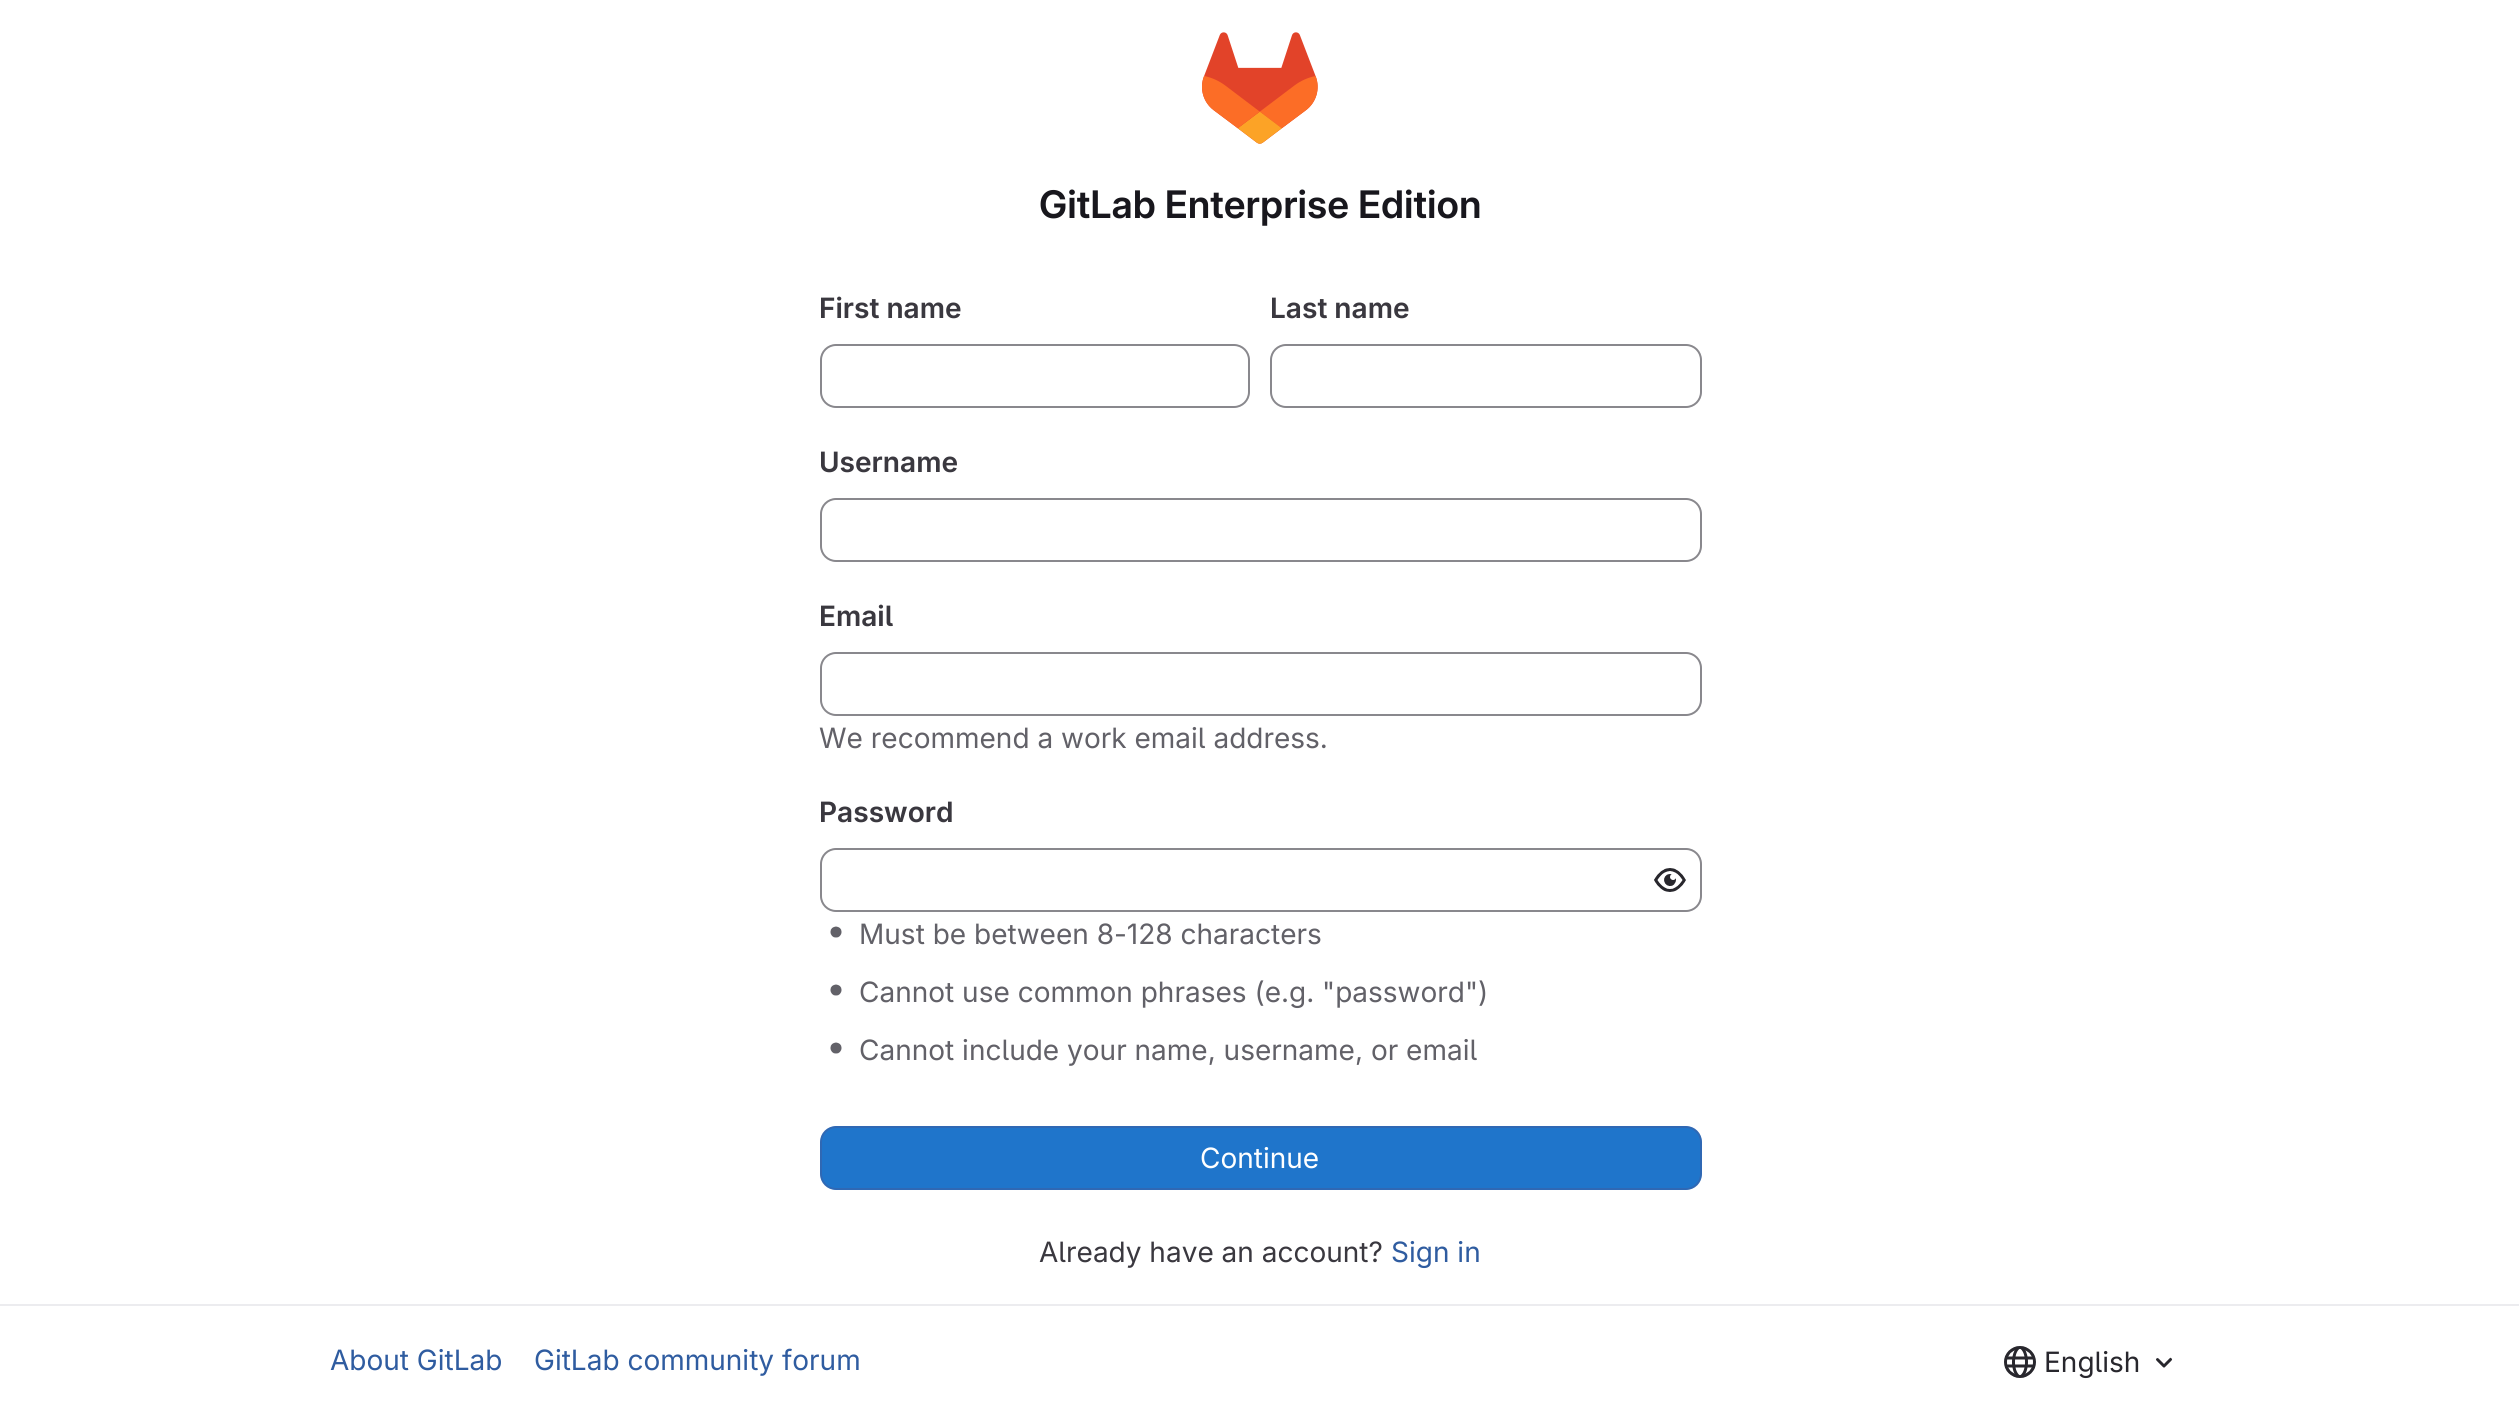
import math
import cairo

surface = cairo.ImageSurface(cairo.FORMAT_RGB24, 2519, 1405)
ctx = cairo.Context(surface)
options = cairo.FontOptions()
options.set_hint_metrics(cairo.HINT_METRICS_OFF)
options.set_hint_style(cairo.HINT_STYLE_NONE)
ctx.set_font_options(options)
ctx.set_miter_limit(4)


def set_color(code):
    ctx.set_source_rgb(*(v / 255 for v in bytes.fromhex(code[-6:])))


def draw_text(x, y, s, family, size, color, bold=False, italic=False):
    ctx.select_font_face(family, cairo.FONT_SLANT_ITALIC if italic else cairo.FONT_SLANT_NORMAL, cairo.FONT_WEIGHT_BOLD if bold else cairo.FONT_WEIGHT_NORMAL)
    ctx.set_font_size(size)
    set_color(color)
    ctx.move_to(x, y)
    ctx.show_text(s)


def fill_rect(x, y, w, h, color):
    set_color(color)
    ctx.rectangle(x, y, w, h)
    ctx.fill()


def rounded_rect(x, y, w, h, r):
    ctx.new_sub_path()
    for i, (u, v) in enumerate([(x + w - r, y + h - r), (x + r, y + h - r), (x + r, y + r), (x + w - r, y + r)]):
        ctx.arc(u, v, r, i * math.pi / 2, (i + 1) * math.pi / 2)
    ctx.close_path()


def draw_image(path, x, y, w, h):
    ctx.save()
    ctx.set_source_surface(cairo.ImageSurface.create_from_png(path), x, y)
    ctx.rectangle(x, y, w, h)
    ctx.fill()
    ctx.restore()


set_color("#ffffff")
ctx.paint()
draw_image("assets/img1.png", 1202, 32, 116, 112)
draw_text(1039, 218, "GitLab Enterprise Edition", "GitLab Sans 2 SemiBold", 38, "#18171d")
draw_text(819, 318, "First name", "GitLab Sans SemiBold", 28, "#3a383f")
rounded_rect(821, 345, 428, 62, 15)
set_color("#89888d")
ctx.stroke()
draw_text(1270, 318, "Last name", "GitLab Sans SemiBold", 28, "#3a383f")
rounded_rect(1271, 345, 430, 62, 15)
set_color("#89888d")
ctx.stroke()
draw_text(819, 472, "Username", "GitLab Sans SemiBold", 28, "#3a383f")
rounded_rect(821, 499, 880, 62, 15)
set_color("#89888d")
ctx.stroke()
draw_text(819, 626, "Email", "GitLab Sans SemiBold", 28, "#3a383f")
rounded_rect(821, 653, 880, 62, 15)
set_color("#89888d")
ctx.stroke()
draw_text(819, 748, "We recommend a work email address.", "GitLab Sans", 28, "#626168")
draw_text(819, 822, "Password", "GitLab Sans SemiBold", 28, "#3a383f")
rounded_rect(821, 849, 880, 62, 15)
set_color("#89888d")
ctx.stroke()
draw_image("assets/img2.png", 1654, 868, 32, 24)
draw_image("assets/img3.png", 830, 926, 12, 12)
draw_text(859, 944, "Must be between 8-128 characters", "GitLab Sans", 28, "#626168")
draw_image("assets/img3.png", 830, 984, 12, 12)
draw_text(859, 1002, "Cannot use common phrases (e.g. \"password\")", "GitLab Sans", 28, "#626168")
draw_image("assets/img3.png", 830, 1042, 12, 12)
draw_text(859, 1060, "Cannot include your name, username, or email", "GitLab Sans", 28, "#626168")
set_color("#1f75cb")
rounded_rect(821, 1127, 880, 62, 15)
ctx.fill_preserve()
set_color("#2f68b4")
ctx.stroke()
draw_text(1200, 1168, "Continue", "GitLab Sans", 28, "#ffffff")
draw_text(1039, 1262, "Already have an account?", "GitLab Sans", 28, "#3a383f")
draw_text(1391, 1262, "Sign in", "GitLab Sans", 28, "#2f5ca0")
fill_rect(0, 1304, 2519, 2, "#ececef")
draw_text(330, 1370, "About GitLab", "GitLab Sans", 28, "#2f5ca0")
draw_text(534, 1370, "GitLab community forum", "GitLab Sans", 28, "#2f5ca0")
draw_image("assets/img4.png", 2004, 1346, 32, 32)
draw_text(2044, 1372, "English", "GitLab Sans", 28, "#28272d")
draw_image("assets/img5.png", 2156, 1357, 17, 11)
surface.write_to_png("output.png")
